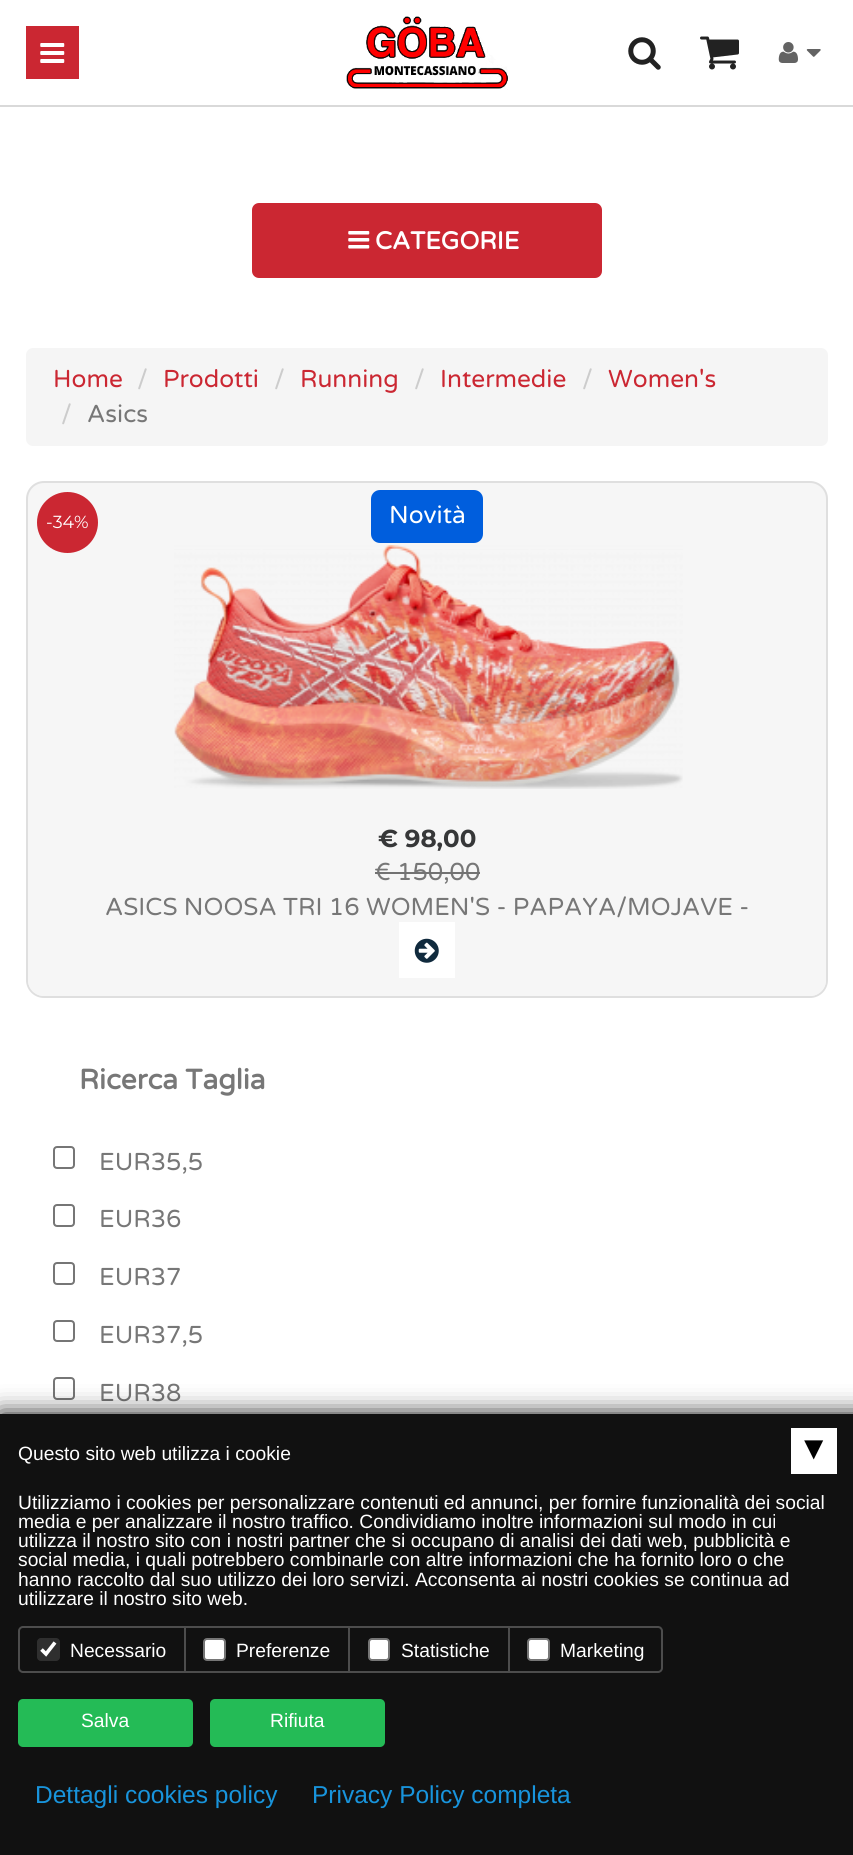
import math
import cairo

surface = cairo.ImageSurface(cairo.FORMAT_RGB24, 853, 1855)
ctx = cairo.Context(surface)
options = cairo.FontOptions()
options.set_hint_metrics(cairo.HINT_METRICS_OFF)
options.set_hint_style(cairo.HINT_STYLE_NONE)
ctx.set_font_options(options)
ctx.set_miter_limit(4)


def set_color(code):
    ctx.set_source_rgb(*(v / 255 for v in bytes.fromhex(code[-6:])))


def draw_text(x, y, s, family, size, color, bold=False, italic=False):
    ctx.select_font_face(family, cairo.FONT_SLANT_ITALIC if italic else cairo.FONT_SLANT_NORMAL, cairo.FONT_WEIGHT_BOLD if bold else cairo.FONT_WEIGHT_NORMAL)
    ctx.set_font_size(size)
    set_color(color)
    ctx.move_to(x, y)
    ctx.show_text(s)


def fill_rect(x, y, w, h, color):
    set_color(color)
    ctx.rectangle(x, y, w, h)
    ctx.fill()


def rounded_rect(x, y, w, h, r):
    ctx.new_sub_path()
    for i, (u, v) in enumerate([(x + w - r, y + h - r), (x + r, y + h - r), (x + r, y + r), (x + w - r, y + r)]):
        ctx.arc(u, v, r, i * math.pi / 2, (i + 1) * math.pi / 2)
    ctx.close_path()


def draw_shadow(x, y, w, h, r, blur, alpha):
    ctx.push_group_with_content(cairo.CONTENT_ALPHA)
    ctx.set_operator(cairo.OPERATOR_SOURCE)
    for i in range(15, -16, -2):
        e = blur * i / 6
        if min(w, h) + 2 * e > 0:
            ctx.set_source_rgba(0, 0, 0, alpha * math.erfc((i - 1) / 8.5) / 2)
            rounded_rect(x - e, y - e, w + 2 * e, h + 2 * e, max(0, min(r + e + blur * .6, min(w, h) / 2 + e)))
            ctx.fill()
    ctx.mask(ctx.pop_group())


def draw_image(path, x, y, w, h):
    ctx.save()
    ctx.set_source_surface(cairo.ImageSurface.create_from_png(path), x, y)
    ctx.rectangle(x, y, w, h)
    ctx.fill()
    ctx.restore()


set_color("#ffffff")
ctx.paint()
fill_rect(0, 105, 853, 2, "#d9d9d9")
fill_rect(26, 26, 53, 53, "#cb2732")
draw_image("assets/img1.png", 40, 43, 25, 20)
draw_image("assets/img2.png", 346, 16, 162, 74)
draw_image("assets/img3.png", 628, 37, 33, 33)
draw_image("assets/img4.png", 700, 36, 39, 34)
draw_image("assets/img5.png", 778, 42, 20, 21)
draw_image("assets/img6.png", 806, 49, 15, 8)
rounded_rect(252, 203, 350, 75, 7)
ctx.fill()
draw_image("assets/img7.png", 348, 231, 22, 18)
draw_text(375, 249, "CATEGORIE", "Varela Round", 24.5, "#ffffff", bold=True)
set_color("#f5f5f5")
rounded_rect(26, 348, 802, 98, 7)
ctx.fill()
draw_text(53, 387, "Home", "Varela Round", 24.5, "#cb2732")
draw_text(137, 387, "/", "Varela Round", 24.5, "#cccccc")
draw_text(163, 387, "Prodotti", "Varela Round", 24.5, "#cb2732")
draw_text(274, 387, "/", "Varela Round", 24.5, "#cccccc")
draw_text(300, 387, "Running", "Varela Round", 24.5, "#cb2732")
draw_text(414, 387, "/", "Varela Round", 24.5, "#cccccc")
draw_text(440, 387, "Intermedie", "Varela Round", 24.5, "#cb2732")
draw_text(582, 387, "/", "Varela Round", 24.5, "#cccccc")
draw_text(608, 387, "Women's", "Varela Round", 24.5, "#cb2732")
draw_text(61, 422, "/", "Varela Round", 24.5, "#cccccc")
draw_text(87, 422, "Asics", "Varela Round", 24.5, "#777777")
set_color("#f6f6f6")
rounded_rect(27, 482, 800, 515, 17)
ctx.fill_preserve()
set_color("#dfdfdf")
ctx.stroke()
set_color("#005edd")
rounded_rect(371, 490, 112, 53, 9)
ctx.fill()
draw_text(389, 523, "Novità", "Varela Round", 24.5, "#ffffff")
set_color("#cb2732")
ctx.new_path()
ctx.arc(67.5, 522.5, 30.5, 0, 2 * math.pi)
ctx.fill()
draw_text(46, 528, "-34%", "Montserrat", 17.5, "#ffffff")
draw_image("assets/img8.png", 174, 545, 509, 244)
draw_text(378, 847, "€ 98,00", "Montserrat", 24.5, "#363738", bold=True)
draw_text(374, 880, "€ 150,00", "Varela Round", 24.5, "#777777")
fill_rect(375, 872, 105, 2, "#727272")
draw_text(105, 915, "ASICS NOOSA TRI 16 WOMEN'S - PAPAYA/MOJAVE -", "Varela Round", 24.5, "#777777")
set_color("#f6f6f6")
ctx.new_path()
ctx.move_to(28, 922)
ctx.line_to(826, 922)
ctx.line_to(826, 980)
ctx.curve_to(826, 989, 819, 996, 810, 996)
ctx.line_to(44, 996)
ctx.curve_to(35, 996, 28, 989, 28, 980)
ctx.close_path()
ctx.fill()
fill_rect(399, 922, 56, 56, "#ffffff")
draw_image("assets/img9.png", 414, 938, 25, 25)
draw_text(79, 1089, "Ricerca Taglia", "Varela Round", 28, "#777777", bold=True)
rounded_rect(54, 1147, 20, 21, 3)
set_color("#767676")
ctx.stroke()
draw_text(99, 1170, "EUR35,5", "Varela Round", 24.5, "#777777")
rounded_rect(54, 1205, 20, 21, 3)
set_color("#767676")
ctx.stroke()
draw_text(99, 1227, "EUR36", "Varela Round", 24.5, "#777777")
rounded_rect(54, 1263, 20, 21, 3)
set_color("#767676")
ctx.stroke()
draw_text(99, 1285, "EUR37", "Varela Round", 24.5, "#777777")
rounded_rect(54, 1321, 20, 20, 3)
set_color("#767676")
ctx.stroke()
draw_text(99, 1343, "EUR37,5", "Varela Round", 24.5, "#777777")
rounded_rect(54, 1378, 20, 21, 3)
set_color("#767676")
ctx.stroke()
draw_text(99, 1401, "EUR38", "Varela Round", 24.5, "#777777")
set_color("#121212")
draw_shadow(0, 1414, 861, 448, 0, 12, 1)
fill_rect(0, 1414, 853, 441, "#111111")
draw_text(18, 1460, "Questo sito web utilizza i cookie", "Liberation Sans", 19.25, "#ffffff")
fill_rect(791, 1428, 46, 46, "#ffffff")
ctx.save()
ctx.translate(823, 1440)
ctx.rotate(180 * math.pi / 180)
draw_text(0, 0, "▴", "DejaVu Sans", 35, "#000000", bold=True)
ctx.restore()
draw_text(18, 1509, "Utilizziamo i cookies per personalizzare contenuti ed annunci, per fornire funzionalità dei social", "Liberation Sans", 19.25, "#ffffff")
draw_text(18, 1528, "media e per analizzare il nostro traffico. Condividiamo inoltre informazioni sul modo in cui", "Liberation Sans", 19.25, "#ffffff")
draw_text(18, 1547, "utilizza il nostro sito con i nostri partner che si occupano di analisi dei dati web, pubblicità e", "Liberation Sans", 19.25, "#ffffff")
draw_text(18, 1566, "social media, i quali potrebbero combinarle con altre informazioni che ha fornito loro o che", "Liberation Sans", 19.25, "#ffffff")
draw_text(18, 1586, "hanno raccolto dal suo utilizzo dei loro servizi. Acconsenta ai nostri cookies se continua ad", "Liberation Sans", 19.25, "#ffffff")
draw_text(18, 1605, "utilizzare il nostro sito web.", "Liberation Sans", 19.25, "#ffffff")
rounded_rect(19, 1627, 643, 45, 4)
set_color("#4d4d4d")
ctx.stroke()
fill_rect(184, 1628, 2, 43, "#4d4d4d")
set_color("#2f2f2f")
rounded_rect(37, 1638, 23, 23, 4)
ctx.fill()
ctx.new_path()
ctx.move_to(41.5, 1649.5)
ctx.line_to(46, 1654)
ctx.line_to(55, 1642.5)
set_color("#ffffff")
ctx.set_line_width(3.6)
ctx.stroke()
draw_text(70, 1657, "Necessario", "Liberation Sans", 19.25, "#ffffff")
fill_rect(348, 1628, 2, 43, "#4d4d4d")
set_color("#ffffff")
rounded_rect(204, 1639, 21, 21, 3)
ctx.fill_preserve()
set_color("#767676")
ctx.set_line_width(2)
ctx.stroke()
draw_text(236, 1657, "Preferenze", "Liberation Sans", 19.25, "#ffffff")
fill_rect(508, 1628, 2, 43, "#4d4d4d")
set_color("#ffffff")
rounded_rect(369, 1639, 20, 21, 3)
ctx.fill_preserve()
set_color("#767676")
ctx.stroke()
draw_text(401, 1657, "Statistiche", "Liberation Sans", 19.25, "#ffffff")
rounded_rect(528, 1639, 21, 21, 3)
ctx.fill_preserve()
set_color("#767676")
ctx.stroke()
draw_text(560, 1657, "Marketing", "Liberation Sans", 19.25, "#ffffff")
set_color("#24bb56")
rounded_rect(18, 1699, 175, 48, 5)
ctx.fill()
draw_text(81, 1727, "Salva", "Liberation Sans", 19.25, "#ffffff")
set_color("#24bb56")
rounded_rect(210, 1699, 175, 48, 5)
ctx.fill()
draw_text(270, 1727, "Rifiuta", "Liberation Sans", 19.25, "#ffffff")
draw_text(35, 1803, "Dettagli cookies policy", "Liberation Sans", 24.5, "#1894dc")
draw_text(312, 1803, "Privacy Policy completa", "Liberation Sans", 24.5, "#1894dc")
surface.write_to_png("output.png")
